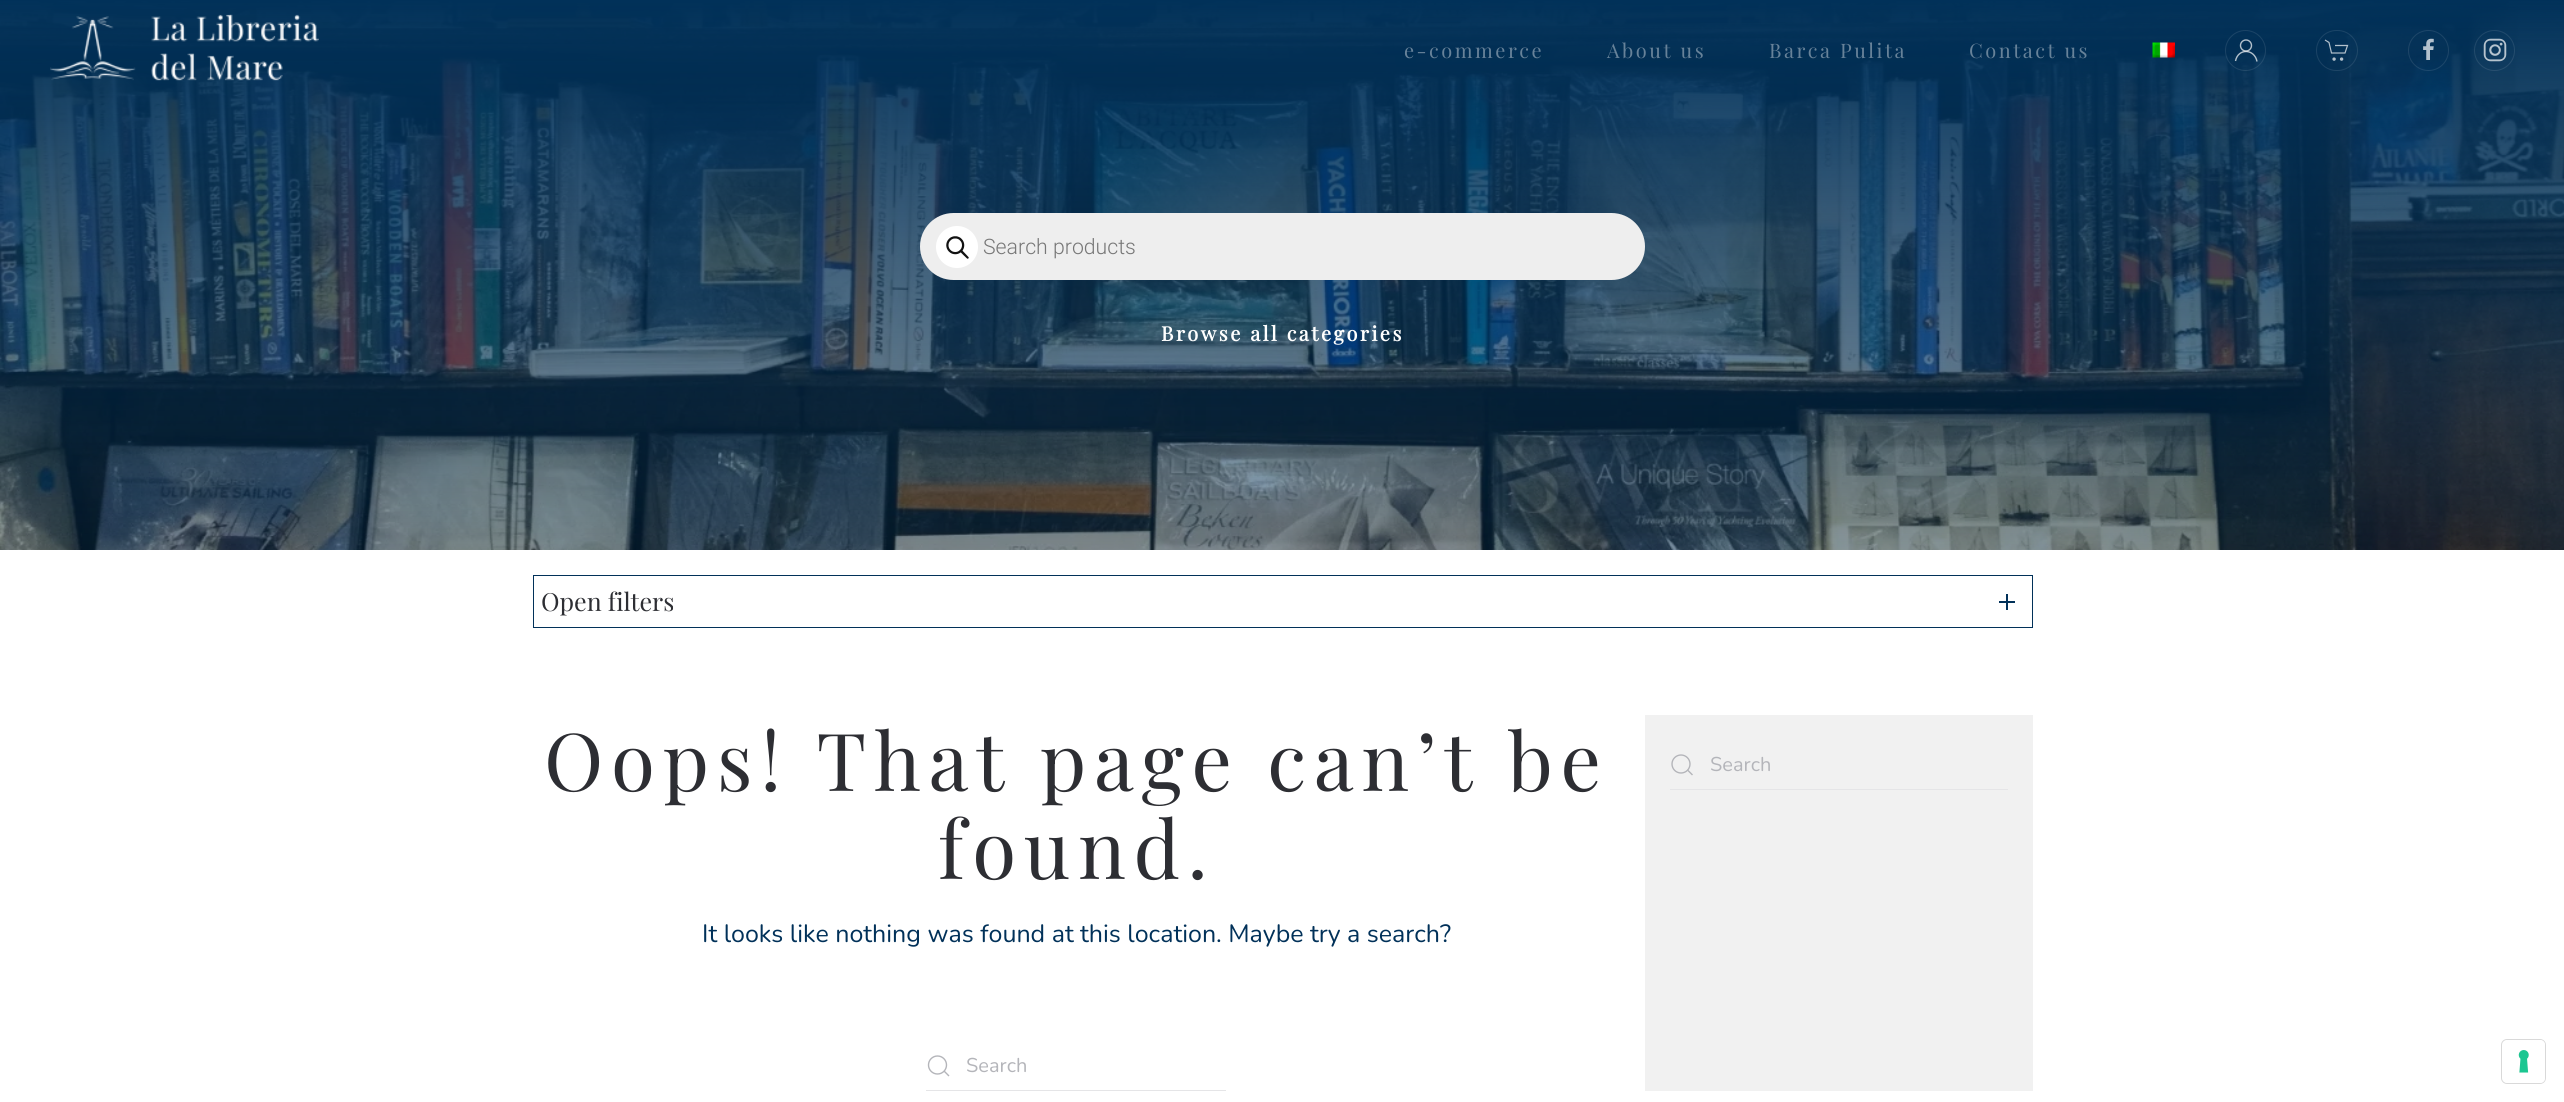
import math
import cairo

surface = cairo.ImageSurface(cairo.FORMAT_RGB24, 2564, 1102)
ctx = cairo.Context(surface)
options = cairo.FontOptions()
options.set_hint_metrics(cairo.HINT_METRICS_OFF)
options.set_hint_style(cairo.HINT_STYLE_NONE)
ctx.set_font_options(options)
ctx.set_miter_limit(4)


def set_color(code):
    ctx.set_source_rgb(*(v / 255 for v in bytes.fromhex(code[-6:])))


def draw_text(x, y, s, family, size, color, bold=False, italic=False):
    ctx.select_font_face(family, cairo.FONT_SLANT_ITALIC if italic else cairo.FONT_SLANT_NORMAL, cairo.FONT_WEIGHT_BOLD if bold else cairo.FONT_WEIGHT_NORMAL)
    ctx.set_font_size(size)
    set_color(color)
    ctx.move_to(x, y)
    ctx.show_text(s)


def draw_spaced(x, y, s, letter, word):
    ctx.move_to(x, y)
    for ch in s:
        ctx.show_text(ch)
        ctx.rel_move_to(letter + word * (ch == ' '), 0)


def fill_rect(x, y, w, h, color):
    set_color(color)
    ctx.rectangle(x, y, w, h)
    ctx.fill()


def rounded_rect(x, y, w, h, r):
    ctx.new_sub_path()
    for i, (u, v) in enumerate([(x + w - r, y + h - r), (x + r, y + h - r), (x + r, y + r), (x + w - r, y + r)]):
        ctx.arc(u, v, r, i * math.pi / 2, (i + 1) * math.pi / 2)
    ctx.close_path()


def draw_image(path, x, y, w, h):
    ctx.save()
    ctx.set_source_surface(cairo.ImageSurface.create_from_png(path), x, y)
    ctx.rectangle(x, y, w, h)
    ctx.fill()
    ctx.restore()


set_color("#ffffff")
ctx.paint()
draw_image("assets/img5.png", 0, 0, 2564, 550)
draw_image("assets/img1.png", 50, 14, 269, 67)
ctx.select_font_face("Playfair Display")
ctx.set_font_size(20)
set_color("#678299")
draw_spaced(1404, 58, "e-commerce", 2.5, 0)
draw_spaced(1607, 58, "About us", 2.5, 0)
draw_spaced(1769, 58, "Barca Pulita", 2.5, 0)
draw_spaced(1969, 58, "Contact us", 2.5, 0)
draw_image("assets/img2.png", 2152, 42, 23, 16)
ctx.arc(2245.5, 50.5, 20, 0, 2 * math.pi)
ctx.set_source_rgba(1, 1, 1, 0.1)
ctx.set_line_width(1)
ctx.stroke()
ctx.arc(2246, 45.5, 5.5, 0, 2 * math.pi)
ctx.set_source_rgba(1, 1, 1, 0.7)
ctx.set_line_width(1.4)
ctx.stroke()
ctx.new_path()
ctx.move_to(2235.5, 61)
ctx.curve_to(2238, 48, 2254.5, 48.5, 2257, 61.5)
ctx.stroke()
rounded_rect(2316.5, 30.5, 41, 40, 20)
ctx.set_source_rgba(1, 1, 1, 0.1)
ctx.set_line_width(1)
ctx.stroke()
ctx.new_path()
ctx.move_to(2325, 40)
ctx.line_to(2329, 42.5)
ctx.line_to(2331.5, 53)
ctx.line_to(2345, 53)
ctx.line_to(2347.5, 45.5)
ctx.line_to(2335, 45.5)
ctx.set_source_rgba(1, 1, 1, 0.7)
ctx.set_line_width(1.2)
ctx.stroke()
set_color("#b4c1cc")
ctx.arc(2334.1, 59.1, 1.7, 0, 2 * math.pi)
ctx.fill()
ctx.arc(2341.6, 59.1, 1.7, 0, 2 * math.pi)
ctx.fill()
ctx.arc(2428.5, 50.5, 20, 0, 2 * math.pi)
ctx.set_source_rgba(1, 1, 1, 0.1)
ctx.set_line_width(1)
ctx.stroke()
draw_image("assets/img3.png", 2423, 38, 11, 22)
ctx.arc(2494.5, 50.5, 20, 0, 2 * math.pi)
ctx.stroke()
draw_image("assets/img4.png", 2483, 38, 24, 24)
set_color("#eeeeee")
rounded_rect(920, 213, 725, 67, 33.5)
ctx.fill()
set_color("#ffffff")
ctx.arc(957, 247, 21, 0, 2 * math.pi)
ctx.fill()
draw_image("assets/img6.png", 946, 236, 23, 23)
draw_text(983, 254, "Search products", "Roboto Light", 21.25, "#777777")
ctx.select_font_face("Playfair Display", cairo.FONT_SLANT_NORMAL, cairo.FONT_WEIGHT_BOLD)
ctx.set_font_size(20)
set_color("#ffffff")
draw_spaced(1161, 341, "Browse all categories", 2.5, 0)
ctx.rectangle(533.5, 575.5, 1499, 52)
set_color("#013159")
ctx.stroke()
draw_text(541, 611, "Open filters", "Playfair Display", 25, "#2d2e33")
fill_rect(1999, 601, 16, 2, "#013159")
fill_rect(2006, 594, 2, 16, "#013159")
ctx.set_font_size(80)
set_color("#2d2e33")
draw_spaced(544, 791, "Oops! That page can’t be", 7.7, 0)
draw_spaced(938, 879, "found.", 7.7, 0)
draw_text(702, 942, "It looks like nothing was found at this location. Maybe try a search?", "Nunito ExtraLight", 25, "#013159")
ctx.new_path()
ctx.arc(937.5, 1065, 9, 0, 2 * math.pi)
set_color("#b4b5ba")
ctx.set_line_width(1.4)
ctx.stroke()
ctx.new_path()
ctx.move_to(944, 1071)
ctx.line_to(949, 1076)
ctx.close_path()
ctx.stroke()
fill_rect(926, 1090, 300, 1, "#e5e5e7")
draw_text(966, 1072, "Search", "Nunito ExtraLight", 20, "#b4b5ba")
fill_rect(1645, 715, 388, 376, "#f1f1f1")
ctx.new_path()
ctx.arc(1681, 764, 9, 0, 2 * math.pi)
set_color("#b4b5ba")
ctx.stroke()
ctx.new_path()
ctx.move_to(1687.5, 770)
ctx.line_to(1692.5, 775)
ctx.close_path()
ctx.stroke()
fill_rect(1670, 789, 338, 1, "#e5e5e7")
draw_text(1710, 771, "Search", "Nunito ExtraLight", 20, "#b4b5ba")
rounded_rect(2501.5, 1039.5, 44, 44, 5.5)
set_color("#d9d9d9")
ctx.set_line_width(1)
ctx.stroke()
set_color("#ffffff")
rounded_rect(2503, 1040, 42, 43, 5)
ctx.fill()
draw_image("assets/img7.png", 2518, 1050, 11, 23)
surface.write_to_png("output.png")
